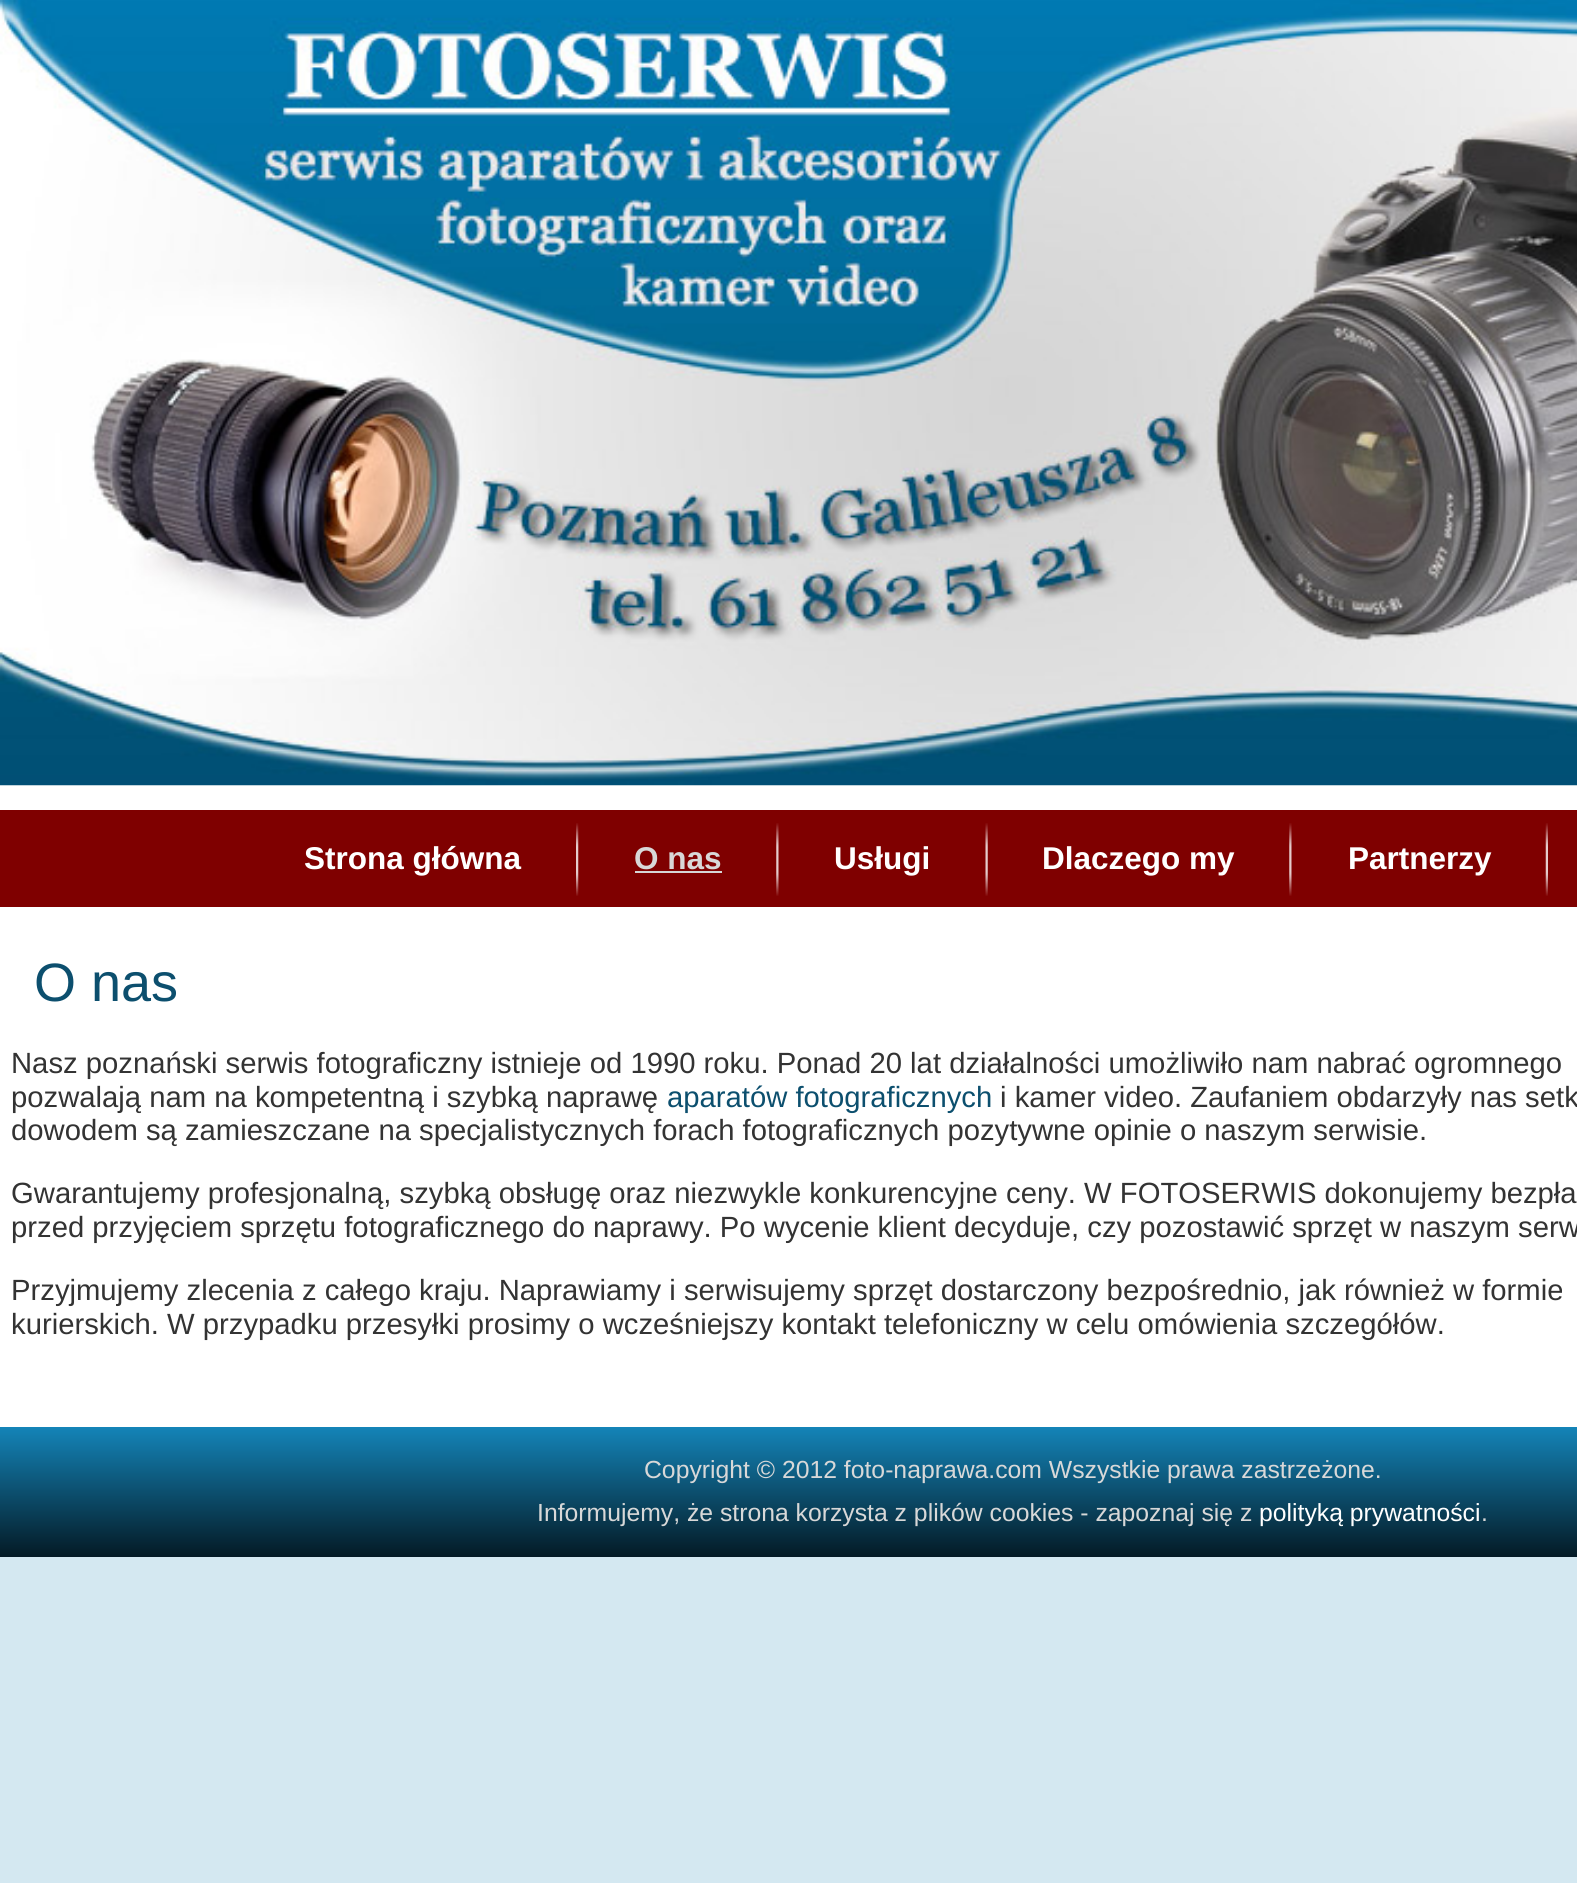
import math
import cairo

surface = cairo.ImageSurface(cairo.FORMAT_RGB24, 1577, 1883)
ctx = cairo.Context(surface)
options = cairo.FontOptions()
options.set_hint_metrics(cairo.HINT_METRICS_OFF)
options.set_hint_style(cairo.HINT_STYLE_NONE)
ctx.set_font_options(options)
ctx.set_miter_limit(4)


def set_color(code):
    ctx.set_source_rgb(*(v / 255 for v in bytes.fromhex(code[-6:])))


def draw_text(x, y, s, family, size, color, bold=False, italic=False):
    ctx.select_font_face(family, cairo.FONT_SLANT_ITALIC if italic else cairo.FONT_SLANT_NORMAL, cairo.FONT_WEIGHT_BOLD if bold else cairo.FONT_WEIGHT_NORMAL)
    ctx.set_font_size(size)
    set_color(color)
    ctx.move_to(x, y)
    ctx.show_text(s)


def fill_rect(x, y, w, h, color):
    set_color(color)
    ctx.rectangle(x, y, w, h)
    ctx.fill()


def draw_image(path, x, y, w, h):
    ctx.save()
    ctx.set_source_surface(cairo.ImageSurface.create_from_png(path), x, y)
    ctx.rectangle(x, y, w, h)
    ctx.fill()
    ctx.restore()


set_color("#d4e8f1")
ctx.paint()
fill_rect(0, 785, 1577, 642, "#ffffff")
draw_image("assets/img1.png", 0, 0, 1577, 786)
fill_rect(0, 810, 1577, 97, "#7f0000")
draw_text(304, 869, "Strona główna", "Liberation Sans", 31.5, "#ffffff", bold=True)
draw_image("assets/img2.png", 576, 823, 3, 73)
draw_text(634, 869, "O nas", "Liberation Sans", 31.5, "#d8d8d8", bold=True)
fill_rect(635, 871, 87, 2, "#d6d6d6")
draw_image("assets/img3.png", 776, 823, 3, 73)
draw_text(834, 869, "Usługi", "Liberation Sans", 31.5, "#ffffff", bold=True)
draw_image("assets/img4.png", 985, 823, 3, 73)
draw_text(1042, 869, "Dlaczego my", "Liberation Sans", 31.5, "#ffffff", bold=True)
draw_image("assets/img3.png", 1289, 823, 3, 73)
draw_text(1348, 869, "Partnerzy", "Liberation Sans", 31.5, "#ffffff", bold=True)
draw_image("assets/img5.png", 1545, 823, 3, 73)
draw_text(34, 1001, "O nas", "Liberation Sans", 54, "#0c4f6e")
draw_text(11, 1073, "Nasz poznański serwis fotograficzny istnieje od 1990 roku. Ponad 20 lat działalności umożliwiło nam nabrać ogromnego", "Liberation Sans", 29.25, "#333333")
draw_text(11, 1107, "pozwalają nam na kompetentną i szybką naprawę", "Liberation Sans", 29.25, "#333333")
draw_text(667, 1107, "aparatów fotograficznych", "Liberation Sans", 29.25, "#0c4f6e")
draw_text(1000, 1107, "i kamer video. Zaufaniem obdarzyły nas setk", "Liberation Sans", 29.25, "#333333")
draw_text(11, 1140, "dowodem są zamieszczane na specjalistycznych forach fotograficznych pozytywne opinie o naszym serwisie.", "Liberation Sans", 29.25, "#333333")
draw_text(11, 1203, "Gwarantujemy profesjonalną, szybką obsługę oraz niezwykle konkurencyjne ceny. W FOTOSERWIS dokonujemy bezpła", "Liberation Sans", 29.25, "#333333")
draw_text(11, 1237, "przed przyjęciem sprzętu fotograficznego do naprawy. Po wycenie klient decyduje, czy pozostawić sprzęt w naszym serw", "Liberation Sans", 29.25, "#333333")
draw_text(11, 1300, "Przyjmujemy zlecenia z całego kraju. Naprawiamy i serwisujemy sprzęt dostarczony bezpośrednio, jak również w formie", "Liberation Sans", 29.25, "#333333")
draw_text(11, 1334, "kurierskich. W przypadku przesyłki prosimy o wcześniejszy kontakt telefoniczny w celu omówienia szczegółów.", "Liberation Sans", 29.25, "#333333")
gradient = cairo.LinearGradient(1013, 1427, 1013, 1557)
gradient.add_color_stop_rgba(0, 0.078, 0.518, 0.722, 1)
gradient.add_color_stop_rgba(1, 0.016, 0.102, 0.145, 1)
ctx.set_source(gradient)
ctx.rectangle(0, 1427, 1577, 130)
ctx.fill()
draw_text(644, 1478, "Copyright © 2012 foto-naprawa.com Wszystkie prawa zastrzeżone.", "Liberation Sans", 24.75, "#d8d8d8")
draw_text(537, 1521, "Informujemy, że strona korzysta z plików cookies - zapoznaj się z", "Liberation Sans", 24.75, "#d8d8d8")
draw_text(1259, 1521, "polityką prywatności", "Liberation Sans", 24.75, "#ffffff")
draw_text(1481, 1521, ".", "Liberation Sans", 24.75, "#d8d8d8")
surface.write_to_png("output.png")
